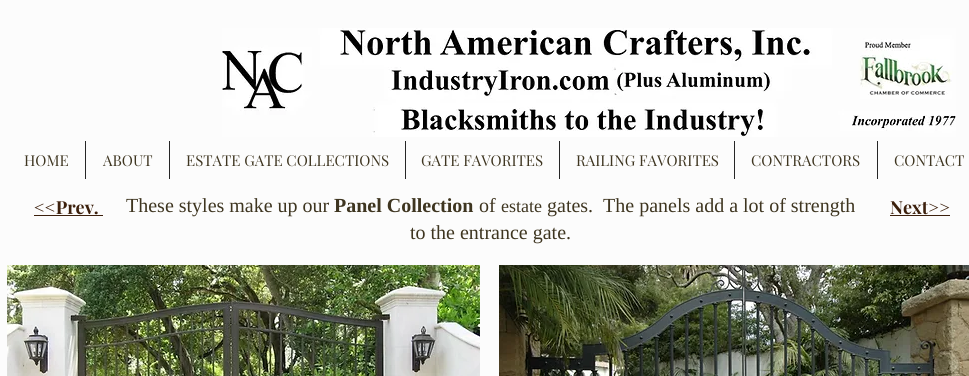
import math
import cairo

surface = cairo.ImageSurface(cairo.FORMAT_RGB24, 969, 376)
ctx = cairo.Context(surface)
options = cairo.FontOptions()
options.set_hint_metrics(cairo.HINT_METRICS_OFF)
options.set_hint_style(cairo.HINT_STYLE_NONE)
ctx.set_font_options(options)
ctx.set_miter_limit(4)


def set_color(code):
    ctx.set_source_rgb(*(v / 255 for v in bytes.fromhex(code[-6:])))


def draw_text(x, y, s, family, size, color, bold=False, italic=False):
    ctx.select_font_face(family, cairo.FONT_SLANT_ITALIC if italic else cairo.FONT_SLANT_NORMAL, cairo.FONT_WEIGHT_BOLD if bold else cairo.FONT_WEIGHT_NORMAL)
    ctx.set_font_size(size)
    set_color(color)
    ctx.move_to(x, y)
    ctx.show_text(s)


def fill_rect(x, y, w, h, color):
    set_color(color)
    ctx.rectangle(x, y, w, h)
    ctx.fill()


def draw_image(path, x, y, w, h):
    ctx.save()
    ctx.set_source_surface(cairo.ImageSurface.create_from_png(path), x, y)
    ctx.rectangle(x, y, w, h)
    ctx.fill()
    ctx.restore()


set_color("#fcfcfc")
ctx.paint()
draw_image("assets/img1.png", 222, 28, 734, 109)
draw_text(24, 166, "HOME", "Playfair Display", 15, "#3e3520")
fill_rect(85, 141, 1, 38, "#262626")
draw_text(103, 166, "ABOUT", "Playfair Display", 15, "#3e3520")
fill_rect(169, 141, 1, 38, "#262626")
draw_text(186, 166, "ESTATE GATE COLLECTIONS", "Playfair Display", 15, "#3e3520")
fill_rect(405, 141, 1, 38, "#262626")
draw_text(421, 166, "GATE FAVORITES", "Playfair Display", 15, "#3e3520")
fill_rect(559, 141, 1, 38, "#262626")
draw_text(576, 166, "RAILING FAVORITES", "Playfair Display", 15, "#3e3520")
fill_rect(734, 141, 1, 38, "#262626")
draw_text(751, 166, "CONTRACTORS", "Playfair Display", 15, "#3e3520")
fill_rect(877, 141, 1, 38, "#262626")
draw_text(894, 166, "CONTACT", "Playfair Display", 15, "#3e3520")
draw_text(34, 214, "<<Prev.", "Playfair Display", 18, "#3c200c", bold=True)
fill_rect(34, 215, 69, 1, "#3c200c")
draw_text(126, 212, "These styles make up our", "Liberation Serif", 20, "#3e3520")
draw_text(334, 212, "Panel Collection", "Liberation Serif", 20, "#3e3520", bold=True)
draw_text(479, 212, "of", "Liberation Serif", 20, "#3e3520")
draw_text(501, 212, "estate", "Liberation Serif", 18, "#3e3520")
draw_text(547, 212, "gates.  The panels add a lot of strength", "Liberation Serif", 20, "#3e3520")
draw_text(410, 239, "to the entrance gate.", "Liberation Serif", 20, "#3e3520")
draw_text(890, 214, "Next>>", "Playfair Display", 18, "#3c200c", bold=True)
fill_rect(890, 215, 60, 1, "#3c200c")
draw_image("assets/img2.png", 7, 265, 473, 111)
draw_image("assets/img3.png", 499, 265, 470, 111)
surface.write_to_png("output.png")
